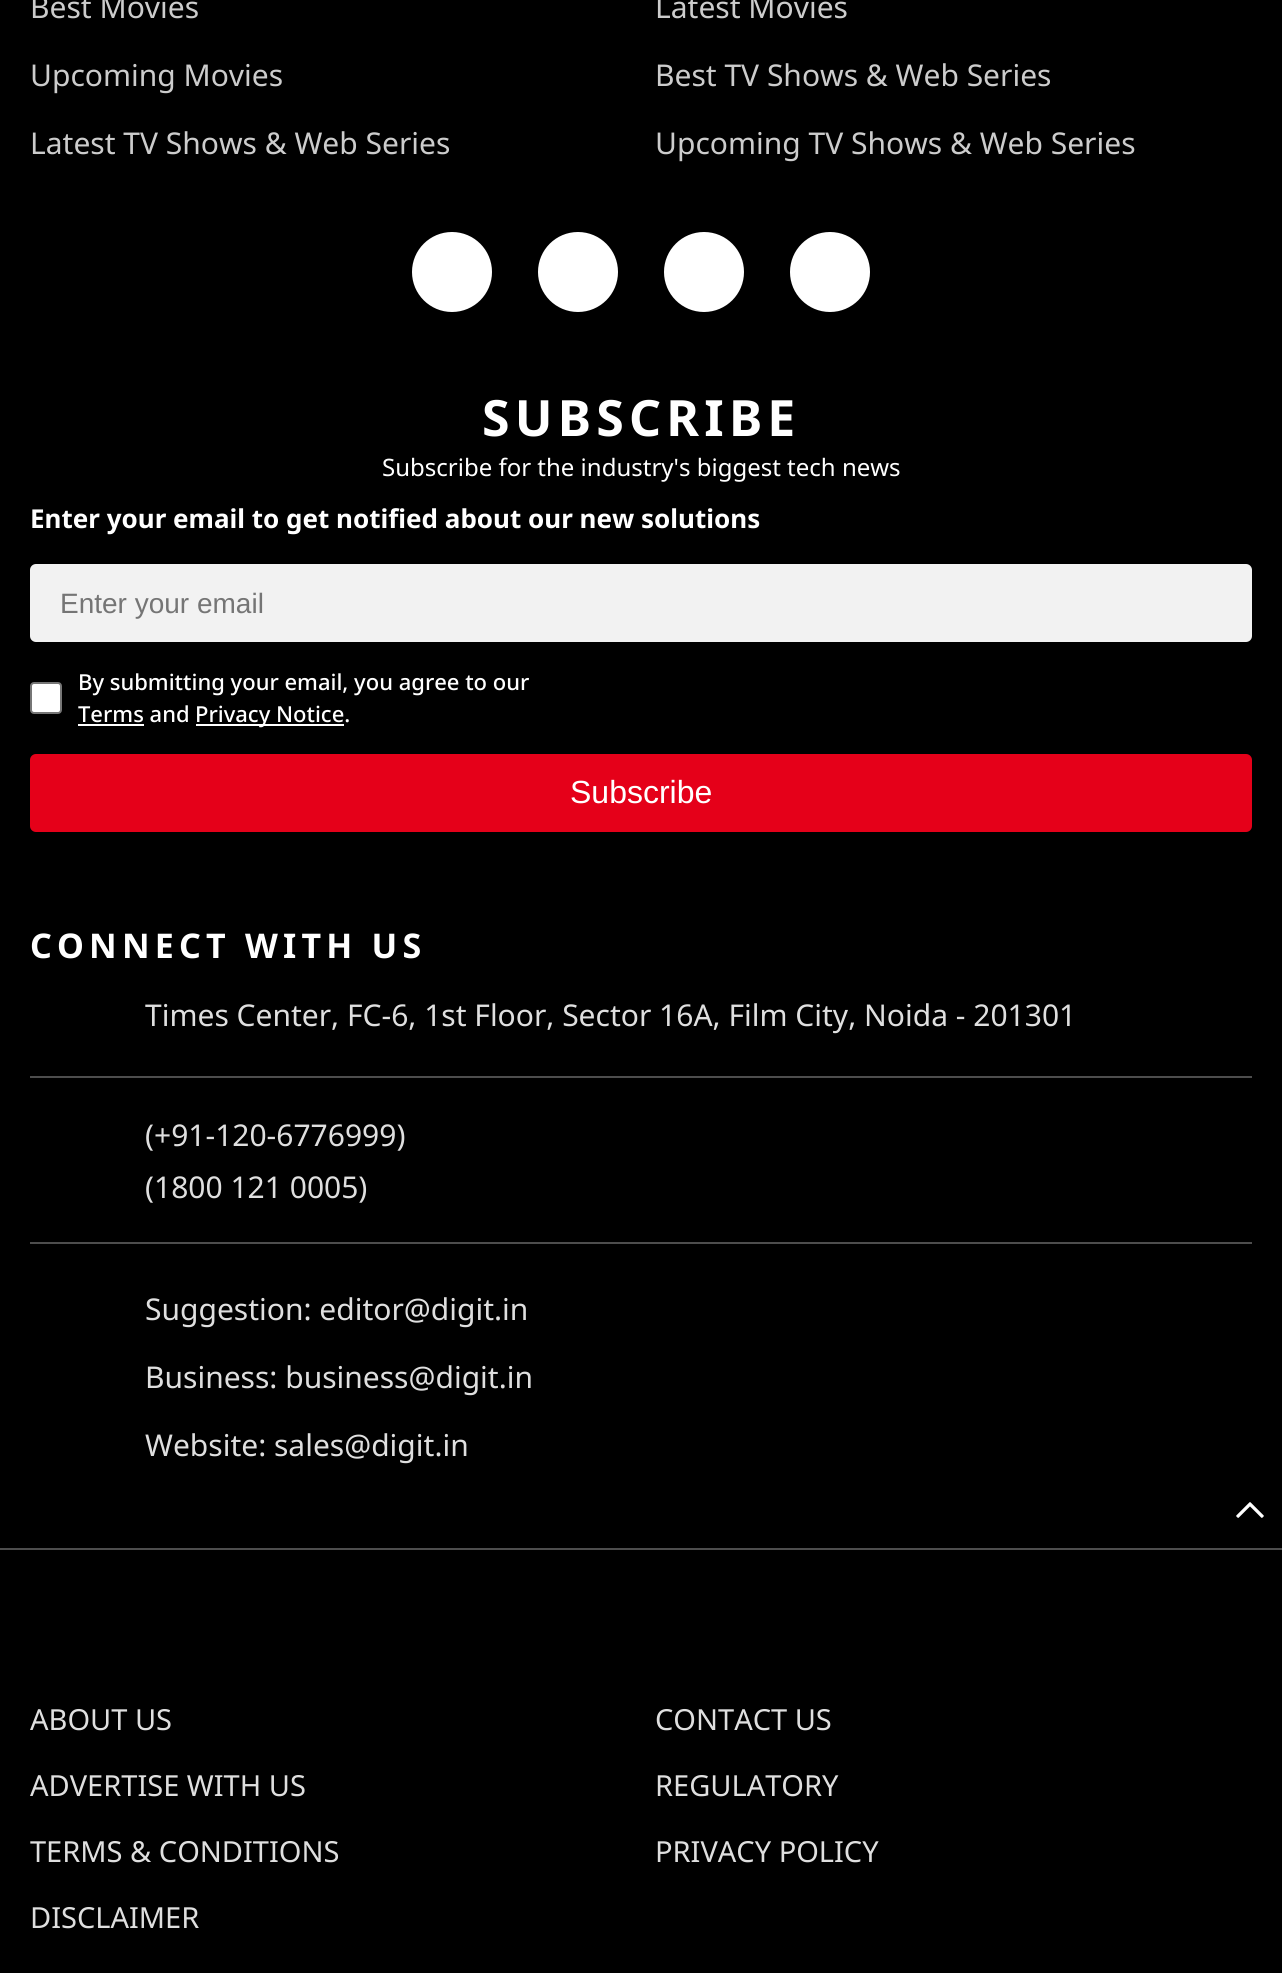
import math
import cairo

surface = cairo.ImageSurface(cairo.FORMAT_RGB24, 1282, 1973)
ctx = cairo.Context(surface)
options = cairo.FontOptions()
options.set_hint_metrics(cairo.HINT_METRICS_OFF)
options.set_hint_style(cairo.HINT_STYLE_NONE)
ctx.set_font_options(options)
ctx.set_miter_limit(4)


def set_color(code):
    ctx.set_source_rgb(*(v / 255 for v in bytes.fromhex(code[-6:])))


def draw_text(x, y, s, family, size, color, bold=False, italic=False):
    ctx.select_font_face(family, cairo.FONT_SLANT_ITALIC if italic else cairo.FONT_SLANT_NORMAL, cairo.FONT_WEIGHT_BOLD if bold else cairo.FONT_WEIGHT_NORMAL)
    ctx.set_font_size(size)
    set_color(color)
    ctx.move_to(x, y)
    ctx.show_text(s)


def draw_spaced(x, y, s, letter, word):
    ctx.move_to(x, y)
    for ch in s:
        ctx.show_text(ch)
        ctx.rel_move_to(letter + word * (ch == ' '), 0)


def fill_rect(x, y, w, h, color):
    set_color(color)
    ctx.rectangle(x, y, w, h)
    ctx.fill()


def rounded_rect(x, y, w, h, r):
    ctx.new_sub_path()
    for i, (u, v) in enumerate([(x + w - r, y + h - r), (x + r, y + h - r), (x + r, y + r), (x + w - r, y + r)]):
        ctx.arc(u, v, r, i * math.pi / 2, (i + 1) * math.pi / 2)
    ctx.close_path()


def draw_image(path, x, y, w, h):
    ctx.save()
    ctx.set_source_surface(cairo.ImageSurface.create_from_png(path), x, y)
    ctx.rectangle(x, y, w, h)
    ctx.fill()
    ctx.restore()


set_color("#000000")
ctx.paint()
draw_text(30, 18, "Best Movies", "Noto Sans", 30, "#cccccc")
draw_text(655, 18, "Latest Movies", "Noto Sans", 30, "#cccccc")
draw_text(30, 86, "Upcoming Movies", "Noto Sans", 30, "#cccccc")
draw_text(655, 86, "Best TV Shows & Web Series", "Noto Sans", 30, "#cccccc")
draw_text(30, 154, "Latest TV Shows & Web Series", "Noto Sans", 30, "#cccccc")
draw_text(655, 154, "Upcoming TV Shows & Web Series", "Noto Sans", 30, "#cccccc")
set_color("#ffffff")
ctx.new_path()
ctx.arc(452, 272, 39, 0, 2 * math.pi)
ctx.fill_preserve()
ctx.stroke()
ctx.arc(578, 272, 39, 0, 2 * math.pi)
ctx.fill_preserve()
ctx.stroke()
ctx.arc(704, 272, 39, 0, 2 * math.pi)
ctx.fill_preserve()
ctx.stroke()
ctx.arc(830, 272, 39, 0, 2 * math.pi)
ctx.fill_preserve()
ctx.stroke()
ctx.select_font_face("Noto Sans", cairo.FONT_SLANT_NORMAL, cairo.FONT_WEIGHT_BOLD)
ctx.set_font_size(50)
draw_spaced(482, 436, "SUBSCRIBE", 5.2, 0)
draw_text(382, 476, "Subscribe for the industry's biggest tech news", "Noto Sans", 24, "#ffffff")
draw_text(30, 528, "Enter your email to get notified about our new solutions", "Noto Sans", 26, "#ffffff", bold=True)
set_color("#f2f2f2")
rounded_rect(30, 564, 1222, 78, 6)
ctx.fill()
draw_text(60, 613, "Enter your email", "Liberation Sans", 28, "#757575")
set_color("#ffffff")
rounded_rect(31, 683, 30, 30, 3)
ctx.fill_preserve()
set_color("#767676")
ctx.stroke()
draw_text(78, 690, "By submitting your email, you agree to our", "Noto Sans Medium", 22, "#ffffff")
draw_text(78, 722, "Terms and", "Noto Sans Medium", 22, "#ffffff")
fill_rect(78, 724, 66, 2, "#ffffff")
fill_rect(196, 724, 148, 2, "#ffffff")
draw_text(195, 722, "Privacy Notice.", "Noto Sans Medium", 22, "#ffffff")
set_color("#e50019")
rounded_rect(31, 755, 1220, 76, 5)
ctx.fill_preserve()
ctx.stroke()
draw_text(570, 803, "Subscribe", "Liberation Sans", 32, "#ffffff")
ctx.select_font_face("Noto Sans", cairo.FONT_SLANT_NORMAL, cairo.FONT_WEIGHT_BOLD)
ctx.set_font_size(34)
draw_spaced(30, 958, "CONNECT WITH US", 5.2, 0)
fill_rect(30, 1076, 1222, 2, "#4d4d4d")
draw_text(145, 1026, "Times Center, FC-6, 1st Floor, Sector 16A, Film City, Noida - 201301", "Noto Sans", 30, "#dfdfdf")
fill_rect(30, 1242, 1222, 2, "#4d4d4d")
draw_text(145, 1146, "(+91-120-6776999)", "Noto Sans", 30, "#dfdfdf")
draw_text(145, 1198, "(1800 121 0005)", "Noto Sans", 30, "#dfdfdf")
draw_text(145, 1320, "Suggestion: editor@digit.in", "Noto Sans", 30, "#dfdfdf")
draw_text(145, 1388, "Business: business@digit.in", "Noto Sans", 30, "#dfdfdf")
draw_text(145, 1456, "Website: sales@digit.in", "Noto Sans", 30, "#dfdfdf")
fill_rect(0, 1548, 1282, 2, "#4d4d4d")
draw_text(30, 1730, "ABOUT US", "Noto Sans", 29, "#dfdfdf")
draw_text(655, 1730, "CONTACT US", "Noto Sans", 29, "#dfdfdf")
draw_text(30, 1796, "ADVERTISE WITH US", "Noto Sans", 29, "#dfdfdf")
draw_text(655, 1796, "REGULATORY", "Noto Sans", 29, "#dfdfdf")
draw_text(30, 1862, "TERMS & CONDITIONS", "Noto Sans", 29, "#dfdfdf")
draw_text(655, 1862, "PRIVACY POLICY", "Noto Sans", 29, "#dfdfdf")
draw_text(30, 1928, "DISCLAIMER", "Noto Sans", 29, "#dfdfdf")
draw_image("assets/img1.png", 1236, 1502, 28, 16)
surface.write_to_png("output.png")
